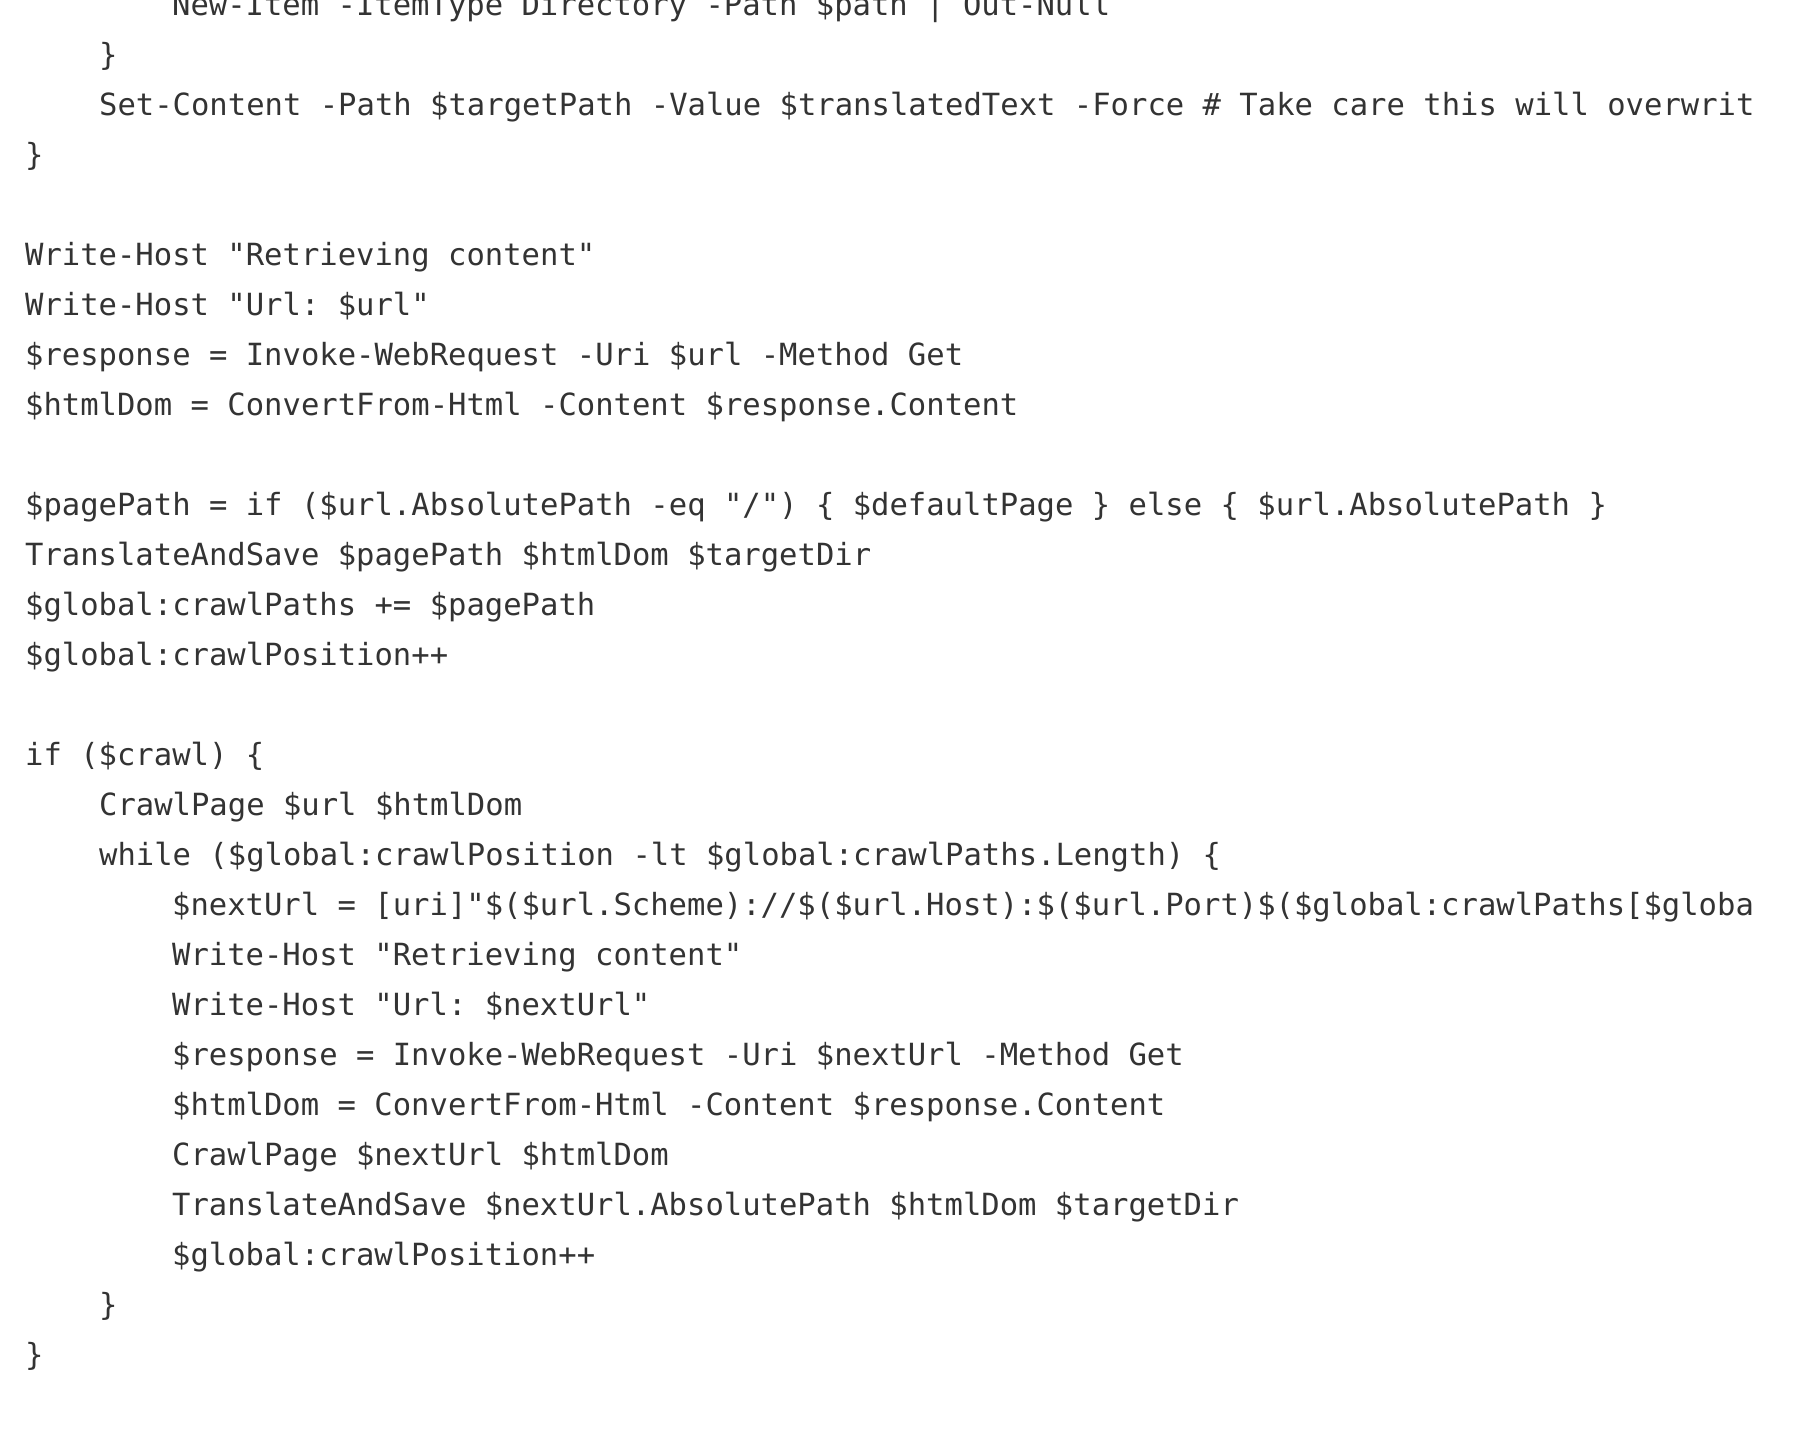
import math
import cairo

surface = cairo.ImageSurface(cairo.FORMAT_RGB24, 1815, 1435)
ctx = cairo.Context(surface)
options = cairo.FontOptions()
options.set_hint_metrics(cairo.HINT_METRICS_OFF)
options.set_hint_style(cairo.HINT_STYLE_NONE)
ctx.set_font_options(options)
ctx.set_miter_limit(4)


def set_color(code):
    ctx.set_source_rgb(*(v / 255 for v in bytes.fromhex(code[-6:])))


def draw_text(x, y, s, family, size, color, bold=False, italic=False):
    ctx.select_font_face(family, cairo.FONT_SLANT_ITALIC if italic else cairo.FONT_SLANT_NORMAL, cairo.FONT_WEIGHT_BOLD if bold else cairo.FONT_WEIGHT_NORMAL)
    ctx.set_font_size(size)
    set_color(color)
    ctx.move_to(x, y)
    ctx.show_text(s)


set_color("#ffffff")
ctx.paint()
draw_text(172, 15, "New-Item -ItemType Directory -Path $path | Out-Null", "DejaVu Sans Mono", 30.55, "#333333")
draw_text(99, 65, "}", "DejaVu Sans Mono", 30.55, "#333333")
draw_text(99, 115, "Set-Content -Path $targetPath -Value $translatedText -Force # Take care this will overwrit", "DejaVu Sans Mono", 30.55, "#333333")
draw_text(25, 165, "}", "DejaVu Sans Mono", 30.55, "#333333")
draw_text(25, 265, "Write-Host \"Retrieving content\"", "DejaVu Sans Mono", 30.55, "#333333")
draw_text(25, 315, "Write-Host \"Url: $url\"", "DejaVu Sans Mono", 30.55, "#333333")
draw_text(25, 365, "$response = Invoke-WebRequest -Uri $url -Method Get", "DejaVu Sans Mono", 30.55, "#333333")
draw_text(25, 415, "$htmlDom = ConvertFrom-Html -Content $response.Content", "DejaVu Sans Mono", 30.55, "#333333")
draw_text(25, 515, "$pagePath = if ($url.AbsolutePath -eq \"/\") { $defaultPage } else { $url.AbsolutePath }", "DejaVu Sans Mono", 30.55, "#333333")
draw_text(25, 565, "TranslateAndSave $pagePath $htmlDom $targetDir", "DejaVu Sans Mono", 30.55, "#333333")
draw_text(25, 615, "$global:crawlPaths += $pagePath", "DejaVu Sans Mono", 30.55, "#333333")
draw_text(25, 665, "$global:crawlPosition++", "DejaVu Sans Mono", 30.55, "#333333")
draw_text(25, 765, "if ($crawl) {", "DejaVu Sans Mono", 30.55, "#333333")
draw_text(99, 815, "CrawlPage $url $htmlDom", "DejaVu Sans Mono", 30.55, "#333333")
draw_text(99, 865, "while ($global:crawlPosition -lt $global:crawlPaths.Length) {", "DejaVu Sans Mono", 30.55, "#333333")
draw_text(172, 915, "$nextUrl = [uri]\"$($url.Scheme)://$($url.Host):$($url.Port)$($global:crawlPaths[$globa", "DejaVu Sans Mono", 30.55, "#333333")
draw_text(172, 965, "Write-Host \"Retrieving content\"", "DejaVu Sans Mono", 30.55, "#333333")
draw_text(172, 1015, "Write-Host \"Url: $nextUrl\"", "DejaVu Sans Mono", 30.55, "#333333")
draw_text(172, 1065, "$response = Invoke-WebRequest -Uri $nextUrl -Method Get", "DejaVu Sans Mono", 30.55, "#333333")
draw_text(172, 1115, "$htmlDom = ConvertFrom-Html -Content $response.Content", "DejaVu Sans Mono", 30.55, "#333333")
draw_text(172, 1165, "CrawlPage $nextUrl $htmlDom", "DejaVu Sans Mono", 30.55, "#333333")
draw_text(172, 1215, "TranslateAndSave $nextUrl.AbsolutePath $htmlDom $targetDir", "DejaVu Sans Mono", 30.55, "#333333")
draw_text(172, 1265, "$global:crawlPosition++", "DejaVu Sans Mono", 30.55, "#333333")
draw_text(99, 1315, "}", "DejaVu Sans Mono", 30.55, "#333333")
draw_text(25, 1365, "}", "DejaVu Sans Mono", 30.55, "#333333")
surface.write_to_png("output.png")
